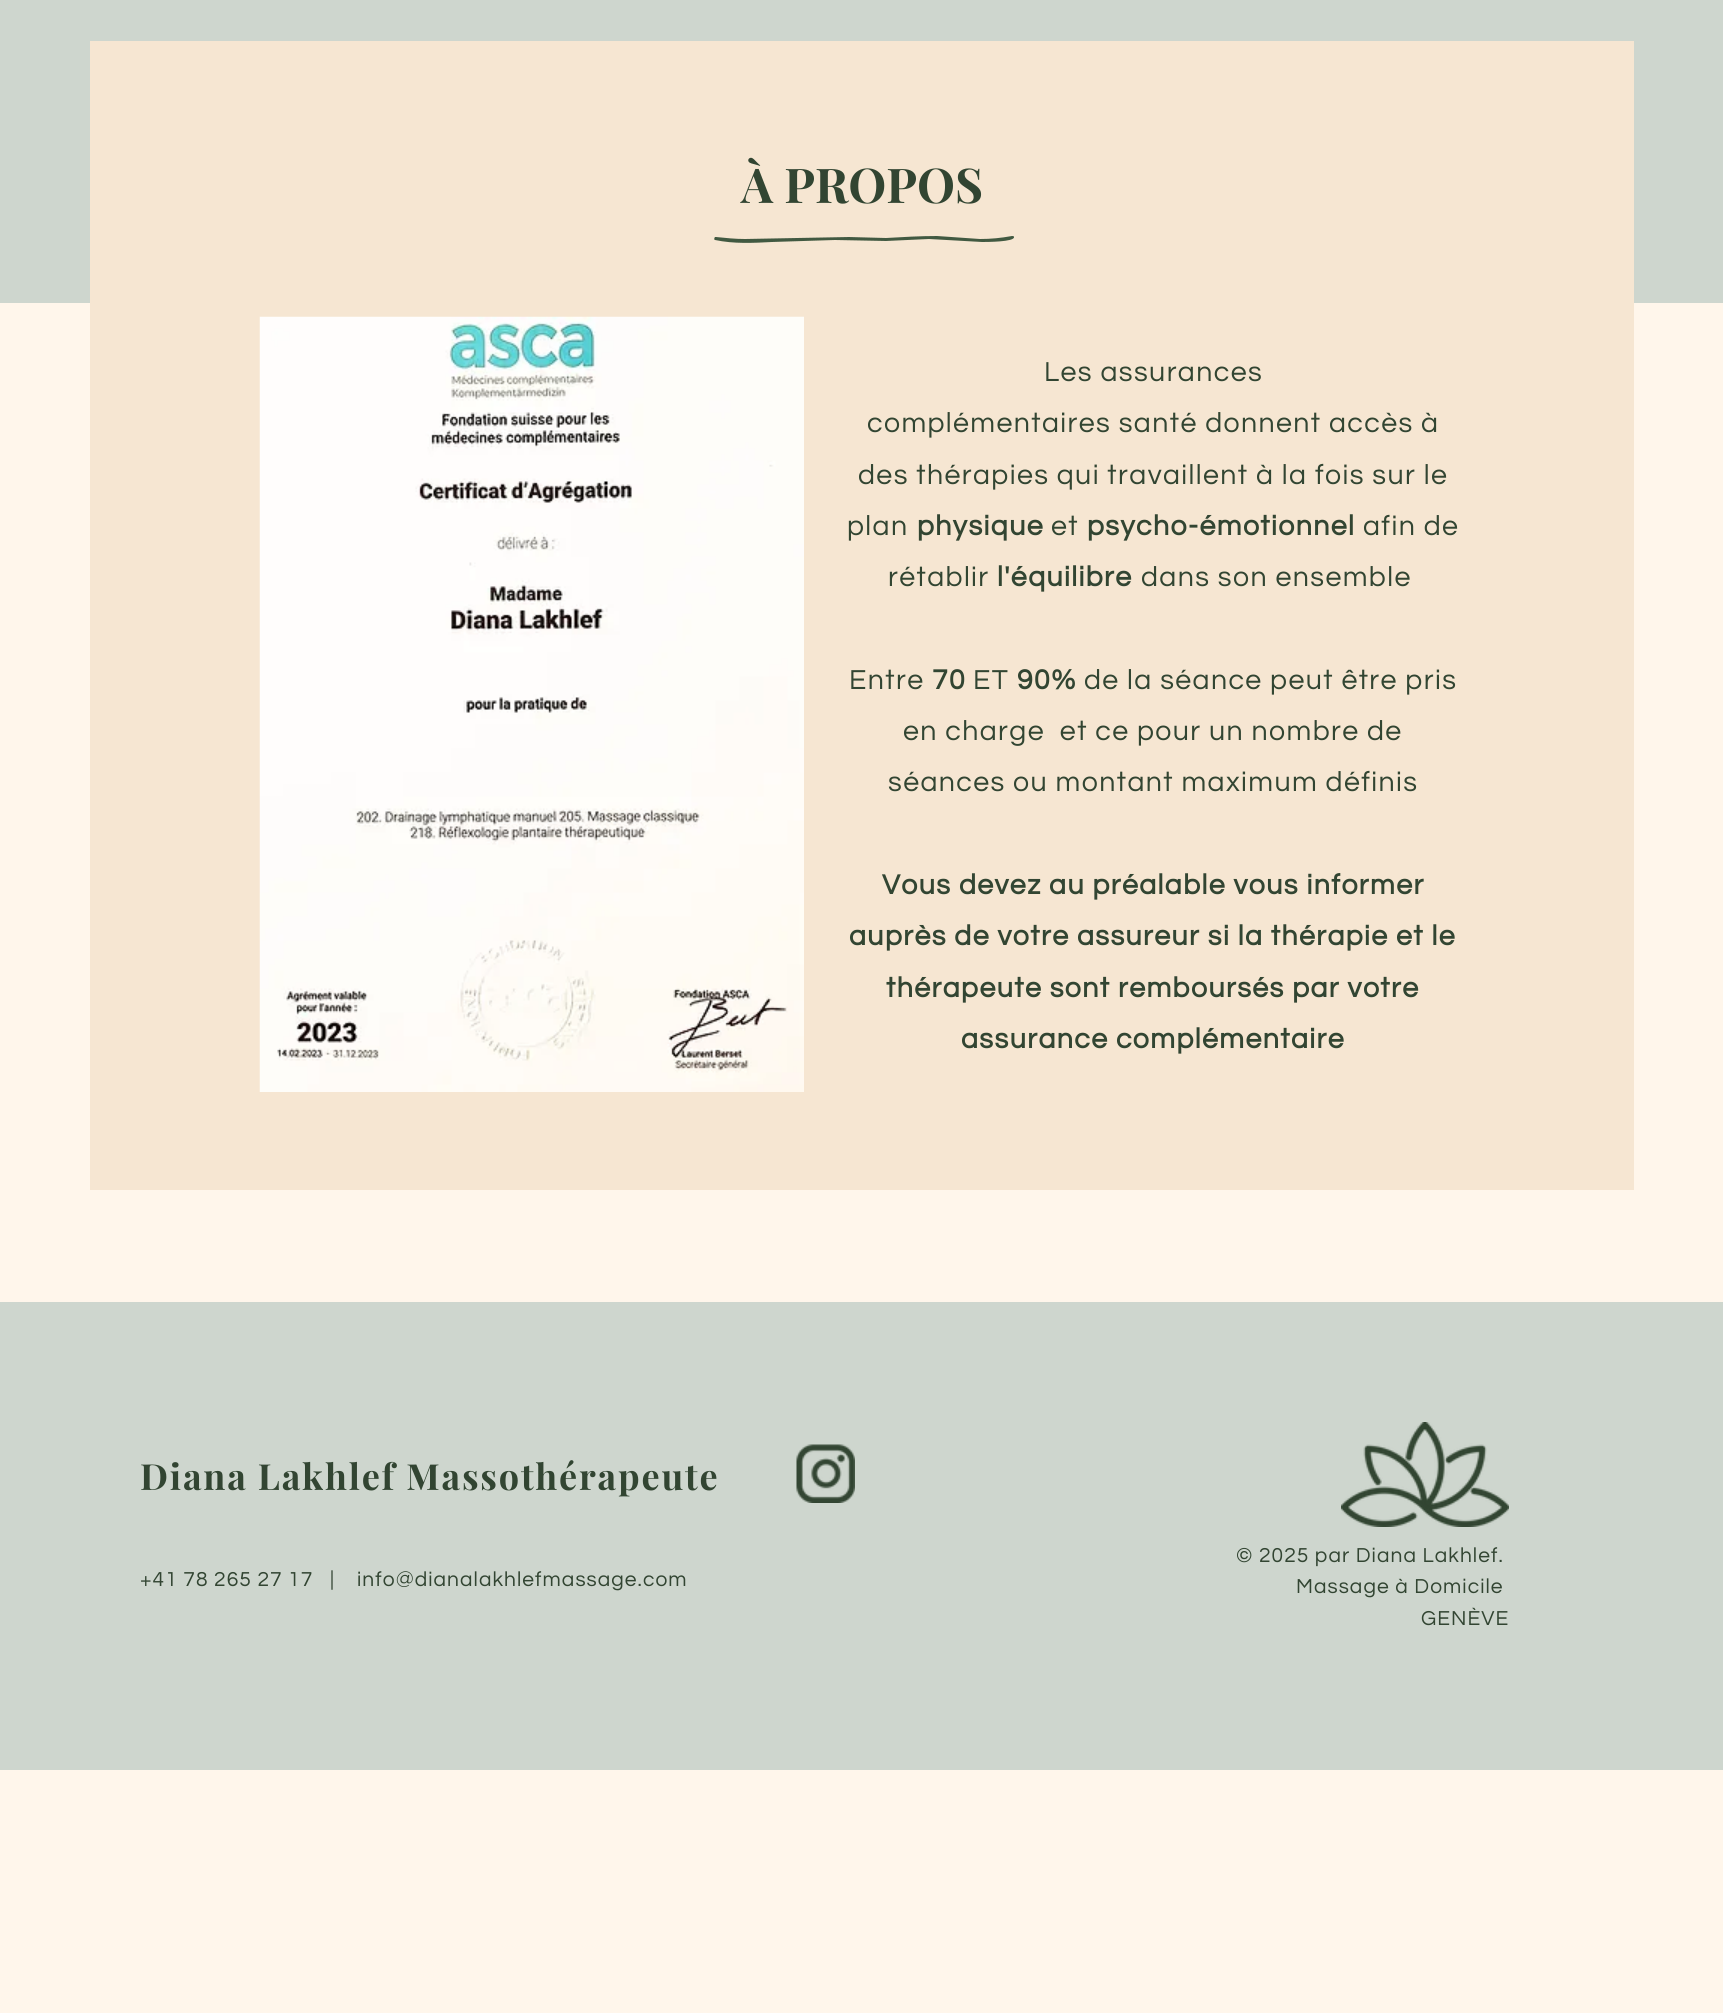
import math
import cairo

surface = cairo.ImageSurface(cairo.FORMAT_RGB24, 1723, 2013)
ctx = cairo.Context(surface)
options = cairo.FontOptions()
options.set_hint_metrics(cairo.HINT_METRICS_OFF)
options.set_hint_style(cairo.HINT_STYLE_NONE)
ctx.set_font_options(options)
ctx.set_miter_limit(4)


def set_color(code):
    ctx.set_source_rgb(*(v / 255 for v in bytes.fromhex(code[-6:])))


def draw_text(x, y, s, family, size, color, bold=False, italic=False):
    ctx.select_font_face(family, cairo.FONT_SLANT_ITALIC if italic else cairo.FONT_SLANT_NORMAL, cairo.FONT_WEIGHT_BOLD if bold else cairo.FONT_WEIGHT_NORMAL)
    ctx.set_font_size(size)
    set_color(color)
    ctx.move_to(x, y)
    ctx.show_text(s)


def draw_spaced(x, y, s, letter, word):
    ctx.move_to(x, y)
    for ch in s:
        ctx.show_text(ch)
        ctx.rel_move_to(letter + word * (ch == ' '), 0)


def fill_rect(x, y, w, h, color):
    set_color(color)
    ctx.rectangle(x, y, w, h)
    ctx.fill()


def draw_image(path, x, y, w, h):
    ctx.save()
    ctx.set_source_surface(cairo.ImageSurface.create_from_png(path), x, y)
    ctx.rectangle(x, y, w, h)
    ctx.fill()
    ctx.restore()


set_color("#fff6eb")
ctx.paint()
fill_rect(0, 0, 1723, 303, "#ced6ce")
fill_rect(90, 41, 1544, 1149, "#f6e6d2")
draw_text(741, 203, "À PROPOS", "Playfair Display", 48, "#324532", bold=True)
set_color("#415941")
ctx.new_path()
ctx.move_to(715, 240)
ctx.curve_to(734, 244, 753, 243, 772, 242)
ctx.line_to(835, 240)
ctx.line_to(886, 241)
ctx.line_to(929, 239)
ctx.line_to(982, 242)
ctx.curve_to(986, 242, 1015, 242, 1014, 237)
ctx.curve_to(1014, 236, 1013, 236, 1012, 236)
ctx.curve_to(1001, 238, 991, 239, 980, 239)
ctx.line_to(937, 236)
ctx.curve_to(920, 236, 903, 237, 886, 238)
ctx.line_to(849, 237)
ctx.line_to(745, 239)
ctx.curve_to(735, 239, 726, 238, 716, 237)
ctx.line_to(715, 237)
ctx.curve_to(714, 238, 714, 240, 715, 240)
ctx.close_path()
ctx.fill()
draw_image("assets/img1.png", 259, 316, 545, 776)
ctx.select_font_face("Questrial")
ctx.set_font_size(28.5)
set_color("#324532")
draw_spaced(1044, 381, "Les assurances", 1.4, 0)
draw_spaced(867, 432, "complémentaires santé donnent accès à", 1.4, 0)
draw_spaced(858, 484, "des thérapies qui travaillent à la fois sur le", 1.4, 0)
draw_spaced(847, 535, "plan", 1.4, 0)
ctx.select_font_face("Questrial", cairo.FONT_SLANT_NORMAL, cairo.FONT_WEIGHT_BOLD)
draw_spaced(917, 535, "physique", 1.4, 0)
ctx.select_font_face("Questrial")
draw_spaced(1051, 535, "et", 1.4, 0)
ctx.select_font_face("Questrial", cairo.FONT_SLANT_NORMAL, cairo.FONT_WEIGHT_BOLD)
draw_spaced(1087, 535, "psycho-émotionnel", 1.4, 0)
ctx.select_font_face("Questrial")
draw_spaced(1363, 535, "afin de", 1.4, 0)
draw_spaced(888, 586, "rétablir", 1.4, 0)
ctx.select_font_face("Questrial", cairo.FONT_SLANT_NORMAL, cairo.FONT_WEIGHT_BOLD)
draw_spaced(997, 586, "l'équilibre", 1.4, 0)
ctx.select_font_face("Questrial")
draw_spaced(1141, 586, "dans son ensemble", 1.4, 0)
draw_spaced(849, 689, "Entre", 1.4, 0)
ctx.select_font_face("Questrial", cairo.FONT_SLANT_NORMAL, cairo.FONT_WEIGHT_BOLD)
draw_spaced(932, 689, "70", 1.4, 0)
ctx.select_font_face("Questrial")
draw_spaced(973, 689, "ET", 1.4, 0)
ctx.select_font_face("Questrial", cairo.FONT_SLANT_NORMAL, cairo.FONT_WEIGHT_BOLD)
draw_spaced(1017, 689, "90%", 1.4, 0)
ctx.select_font_face("Questrial")
draw_spaced(1084, 689, "de la séance peut être pris", 1.4, 0)
draw_spaced(903, 740, "en charge  et ce pour un nombre de", 1.4, 0)
draw_spaced(888, 791, "séances ou montant maximum définis", 1.4, 0)
ctx.select_font_face("Questrial", cairo.FONT_SLANT_NORMAL, cairo.FONT_WEIGHT_BOLD)
draw_spaced(882, 894, "Vous devez au préalable vous informer", 1.4, 0)
draw_spaced(849, 945, "auprès de votre assureur si la thérapie et le", 1.4, 0)
draw_spaced(886, 997, "thérapeute sont remboursés par votre", 1.4, 0)
draw_spaced(961, 1048, "assurance complémentaire", 1.4, 0)
fill_rect(0, 1302, 1723, 468, "#ced6ce")
ctx.select_font_face("Playfair Display", cairo.FONT_SLANT_NORMAL, cairo.FONT_WEIGHT_BOLD)
ctx.set_font_size(36)
set_color("#324532")
draw_spaced(140, 1490, "Diana Lakhlef Massothérapeute", 1.8, 0)
draw_image("assets/img2.png", 796, 1444, 59, 59)
ctx.select_font_face("Questrial")
ctx.set_font_size(21)
draw_spaced(140, 1586, "+41 78 265 27 17   |", 1.05, 0)
draw_spaced(357, 1586, "info@dianalakhlefmassage.com", 1.05, 0)
draw_image("assets/img3.png", 1341, 1422, 168, 105)
draw_spaced(1236, 1562, "© 2025 par Diana Lakhlef.", 1.05, 0)
draw_spaced(1296, 1593, "Massage à Domicile", 1.05, 0)
draw_spaced(1421, 1625, "GENÈVE", 1.05, 0)
surface.write_to_png("output.png")
